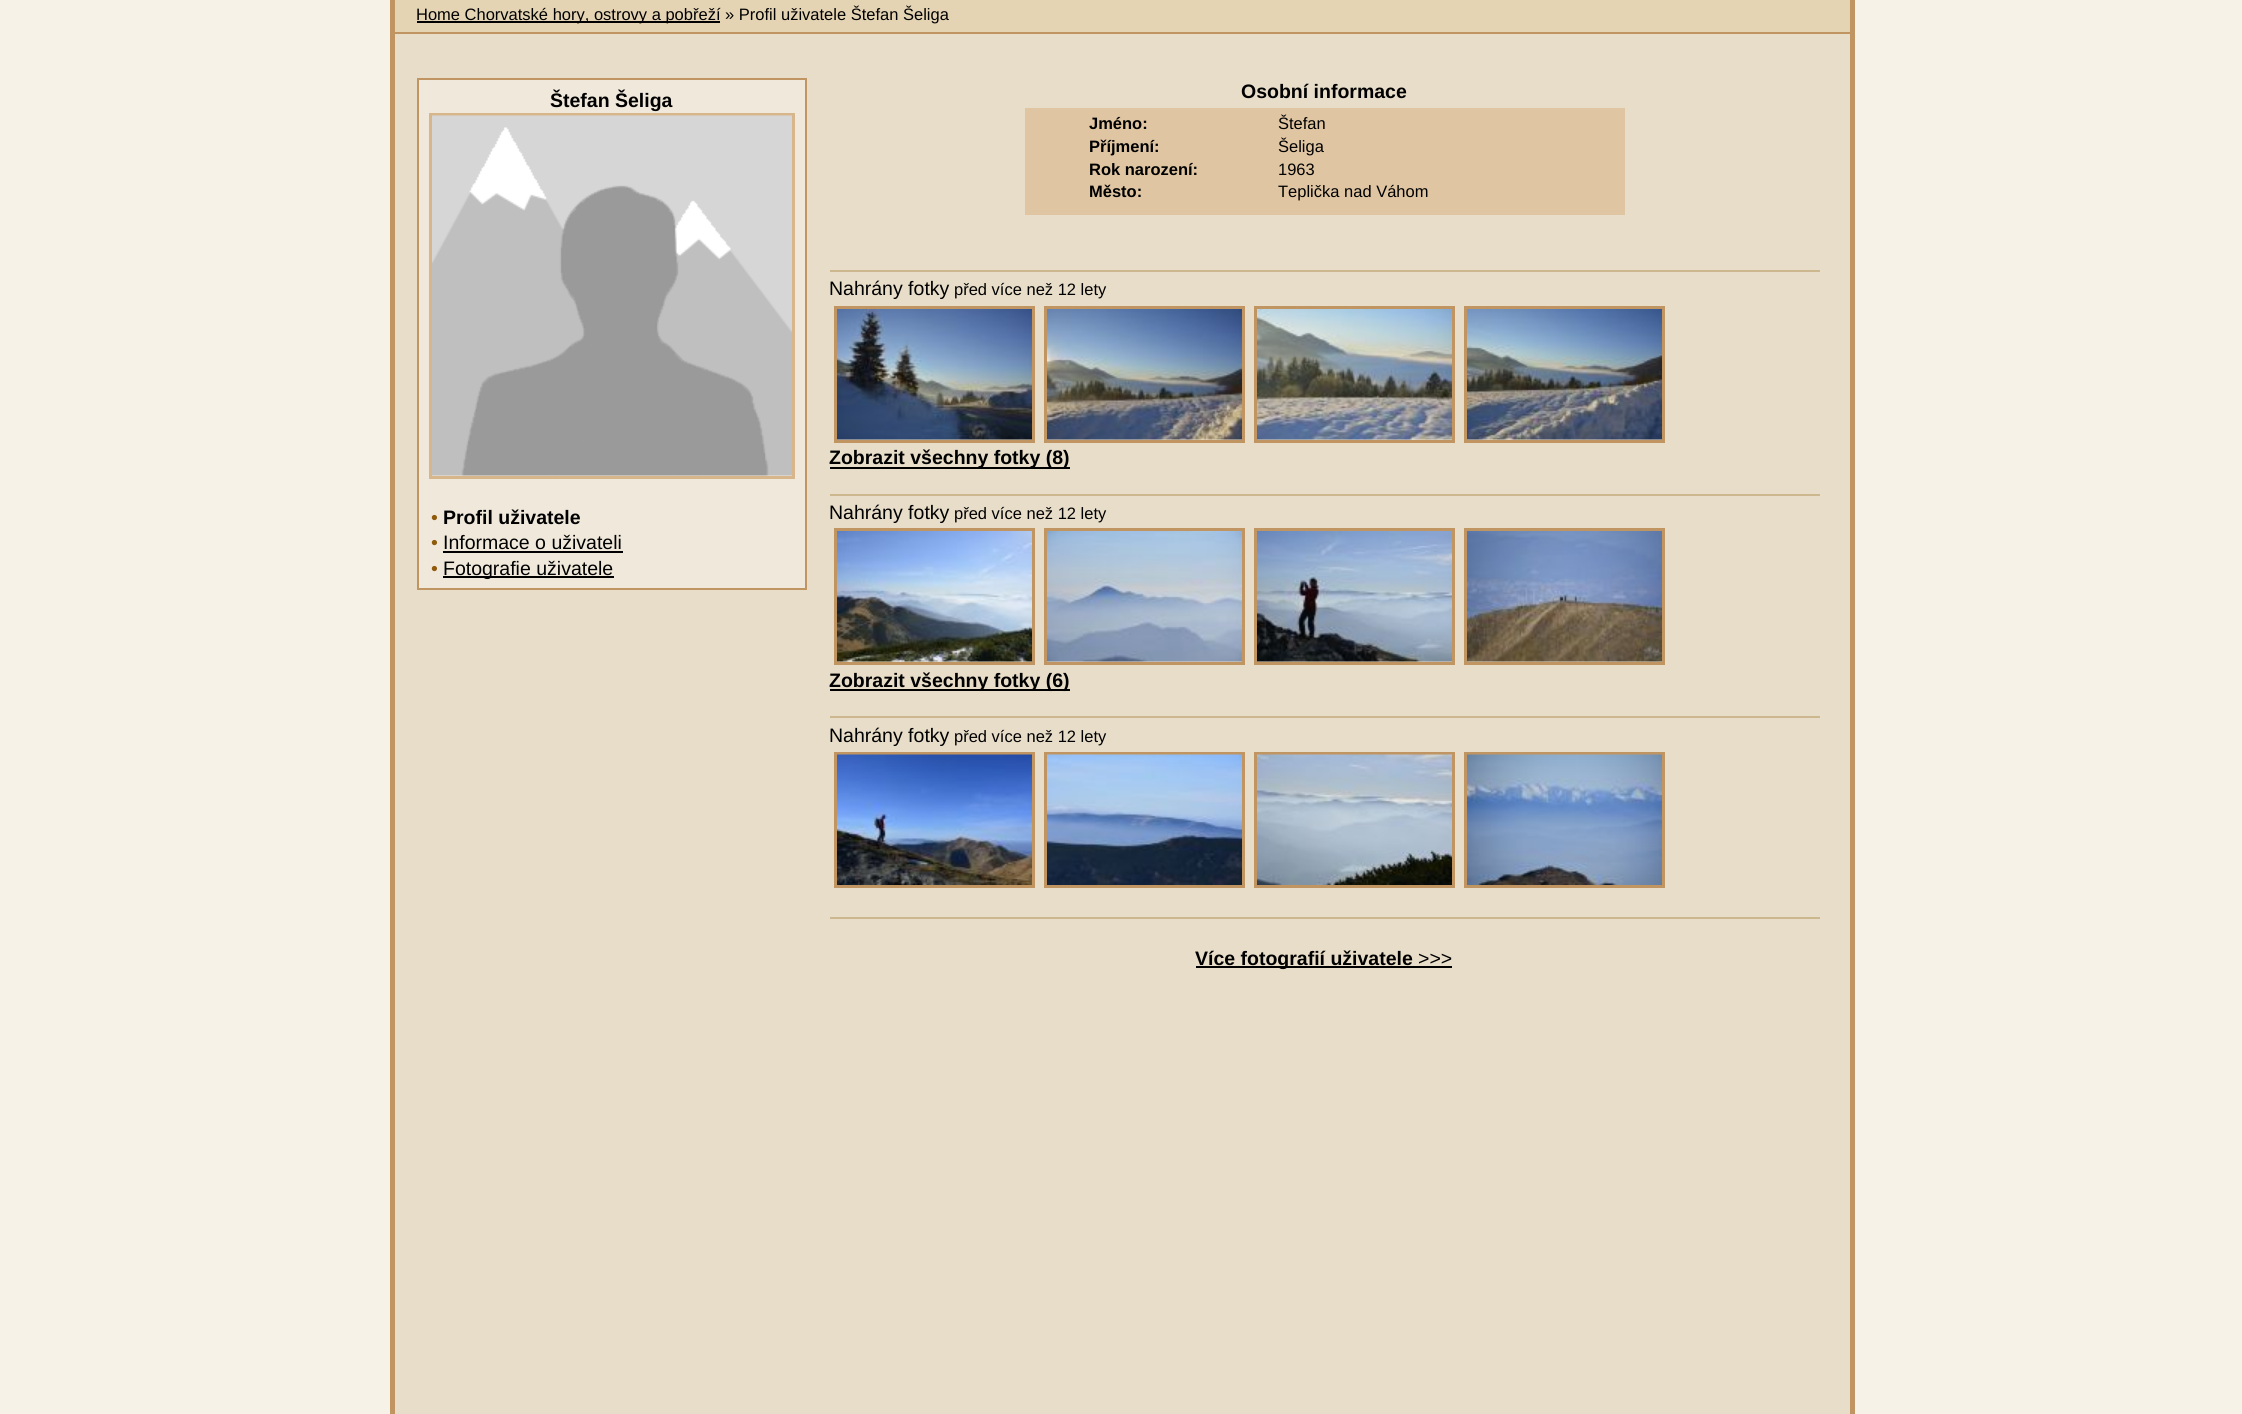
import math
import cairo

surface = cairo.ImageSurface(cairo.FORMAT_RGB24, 2242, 1414)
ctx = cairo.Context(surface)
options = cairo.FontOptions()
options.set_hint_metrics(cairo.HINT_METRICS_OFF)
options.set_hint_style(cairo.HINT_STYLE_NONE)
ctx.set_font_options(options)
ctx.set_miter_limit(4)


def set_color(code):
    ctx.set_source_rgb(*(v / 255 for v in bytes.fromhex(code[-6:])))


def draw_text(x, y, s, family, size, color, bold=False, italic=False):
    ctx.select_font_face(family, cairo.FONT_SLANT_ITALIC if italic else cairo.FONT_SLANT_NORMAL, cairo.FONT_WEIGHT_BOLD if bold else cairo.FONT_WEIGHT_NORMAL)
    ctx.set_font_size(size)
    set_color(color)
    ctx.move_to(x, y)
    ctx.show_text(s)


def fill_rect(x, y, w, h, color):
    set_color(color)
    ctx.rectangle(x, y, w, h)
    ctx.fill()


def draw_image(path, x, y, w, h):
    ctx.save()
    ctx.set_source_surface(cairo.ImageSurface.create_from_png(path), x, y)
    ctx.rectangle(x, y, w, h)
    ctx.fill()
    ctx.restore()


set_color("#f7f2e8")
ctx.paint()
fill_rect(395, 34, 1455, 1380, "#e8ddc8")
fill_rect(1850, 0, 5, 1414, "#c19561")
fill_rect(390, 0, 5, 1414, "#c19561")
fill_rect(395, 0, 1455, 32, "#e5d4b4")
fill_rect(395, 32, 1455, 2, "#c19561")
fill_rect(417, 21, 303, 2, "#000000")
draw_text(416, 20, "Home Chorvatské hory, ostrovy a pobřeží » Profil uživatele Štefan Šeliga", "Liberation Sans", 16.5, "#000000")
set_color("#f0e9db")
ctx.rectangle(418, 79, 388, 510)
ctx.fill_preserve()
set_color("#c19561")
ctx.stroke()
draw_text(550, 107, "Štefan Šeliga", "Liberation Sans", 19.5, "#000000", bold=True)
ctx.rectangle(430.5, 114.5, 363, 363)
set_color("#d8b68c")
ctx.set_line_width(3)
ctx.stroke()
draw_image("assets/img1.png", 432, 115, 360, 361)
draw_text(431, 524, "•", "Liberation Sans", 19.5, "#905a0d")
draw_text(443, 524, "Profil uživatele", "Liberation Sans", 19.5, "#000000", bold=True)
draw_text(431, 549, "•", "Liberation Sans", 19.5, "#905a0d")
draw_text(443, 549, "Informace o uživateli", "Liberation Sans", 19.5, "#000000")
fill_rect(443, 551, 180, 2, "#000000")
draw_text(431, 575, "•", "Liberation Sans", 19.5, "#905a0d")
fill_rect(443, 576, 171, 2, "#000000")
draw_text(443, 575, "Fotografie uživatele", "Liberation Sans", 19.5, "#000000")
draw_text(1241, 98, "Osobní informace", "Liberation Sans", 19.5, "#000000", bold=True)
fill_rect(1025, 108, 600, 107, "#dfc5a2")
draw_text(1089, 129, "Jméno:", "Liberation Sans", 16.5, "#000000", bold=True)
draw_text(1278, 129, "Štefan", "Liberation Sans", 16.5, "#000000")
draw_text(1089, 152, "Příjmení:", "Liberation Sans", 16.5, "#000000", bold=True)
draw_text(1278, 152, "Šeliga", "Liberation Sans", 16.5, "#000000")
draw_text(1089, 175, "Rok narození:", "Liberation Sans", 16.5, "#000000", bold=True)
draw_text(1278, 175, "1963", "Liberation Sans", 16.5, "#000000")
draw_text(1089, 197, "Město:", "Liberation Sans", 16.5, "#000000", bold=True)
draw_text(1278, 197, "Teplička nad Váhom", "Liberation Sans", 16.5, "#000000")
fill_rect(830, 270, 990, 2, "#cdb78e")
draw_text(829, 295, "Nahrány fotky", "Liberation Sans", 19.5, "#000000")
draw_text(954, 295, "před více než 12 lety", "Liberation Sans", 16.5, "#000000")
ctx.rectangle(835.5, 307.5, 198, 134)
set_color("#c19561")
ctx.stroke()
ctx.rectangle(1045.5, 307.5, 198, 134)
ctx.stroke()
ctx.rectangle(1255.5, 307.5, 198, 134)
ctx.stroke()
ctx.rectangle(1465.5, 307.5, 198, 134)
ctx.stroke()
draw_image("assets/img2.png", 837, 309, 195, 131)
draw_image("assets/img3.png", 1047, 309, 195, 131)
draw_image("assets/img4.png", 1257, 309, 195, 131)
draw_image("assets/img5.png", 1467, 309, 195, 131)
fill_rect(830, 467, 240, 2, "#000000")
draw_text(829, 464, "Zobrazit všechny fotky (8)", "Liberation Sans", 19.5, "#000000", bold=True)
fill_rect(830, 494, 990, 2, "#cdb78e")
draw_text(829, 519, "Nahrány fotky", "Liberation Sans", 19.5, "#000000")
draw_text(954, 519, "před více než 12 lety", "Liberation Sans", 16.5, "#000000")
ctx.rectangle(835.5, 529.5, 198, 134)
set_color("#c19561")
ctx.stroke()
ctx.rectangle(1045.5, 529.5, 198, 134)
ctx.stroke()
ctx.rectangle(1255.5, 529.5, 198, 134)
ctx.stroke()
ctx.rectangle(1465.5, 529.5, 198, 134)
ctx.stroke()
draw_image("assets/img6.png", 837, 531, 195, 131)
draw_image("assets/img7.png", 1047, 531, 195, 131)
draw_image("assets/img8.png", 1257, 531, 195, 131)
draw_image("assets/img9.png", 1467, 531, 195, 131)
fill_rect(830, 689, 240, 2, "#000000")
draw_text(829, 687, "Zobrazit všechny fotky (6)", "Liberation Sans", 19.5, "#000000", bold=True)
fill_rect(830, 716, 990, 2, "#cdb78e")
draw_text(829, 742, "Nahrány fotky", "Liberation Sans", 19.5, "#000000")
draw_text(954, 742, "před více než 12 lety", "Liberation Sans", 16.5, "#000000")
ctx.rectangle(835.5, 753.5, 198, 133)
set_color("#c19561")
ctx.stroke()
ctx.rectangle(1045.5, 753.5, 198, 133)
ctx.stroke()
ctx.rectangle(1255.5, 753.5, 198, 133)
ctx.stroke()
ctx.rectangle(1465.5, 753.5, 198, 133)
ctx.stroke()
draw_image("assets/img10.png", 837, 754, 195, 131)
draw_image("assets/img11.png", 1047, 754, 195, 131)
draw_image("assets/img12.png", 1257, 754, 195, 131)
draw_image("assets/img13.png", 1467, 754, 195, 131)
fill_rect(830, 917, 990, 2, "#cdb78e")
fill_rect(1196, 966, 256, 2, "#000000")
draw_text(1195, 965, "Více fotografií uživatele", "Liberation Sans", 19.5, "#000000", bold=True)
draw_text(1418, 965, ">>>", "Liberation Sans", 19.5, "#000000")
surface.write_to_png("output.png")
